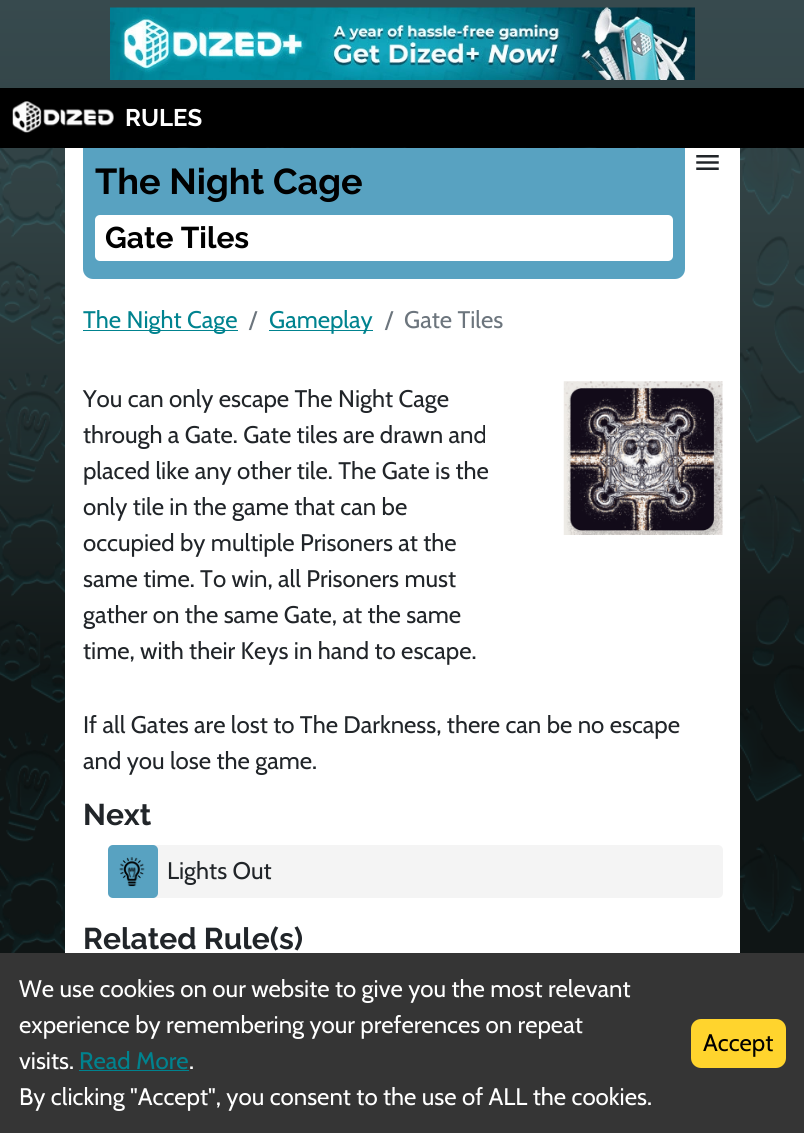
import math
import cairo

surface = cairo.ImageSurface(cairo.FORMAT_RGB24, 804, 1133)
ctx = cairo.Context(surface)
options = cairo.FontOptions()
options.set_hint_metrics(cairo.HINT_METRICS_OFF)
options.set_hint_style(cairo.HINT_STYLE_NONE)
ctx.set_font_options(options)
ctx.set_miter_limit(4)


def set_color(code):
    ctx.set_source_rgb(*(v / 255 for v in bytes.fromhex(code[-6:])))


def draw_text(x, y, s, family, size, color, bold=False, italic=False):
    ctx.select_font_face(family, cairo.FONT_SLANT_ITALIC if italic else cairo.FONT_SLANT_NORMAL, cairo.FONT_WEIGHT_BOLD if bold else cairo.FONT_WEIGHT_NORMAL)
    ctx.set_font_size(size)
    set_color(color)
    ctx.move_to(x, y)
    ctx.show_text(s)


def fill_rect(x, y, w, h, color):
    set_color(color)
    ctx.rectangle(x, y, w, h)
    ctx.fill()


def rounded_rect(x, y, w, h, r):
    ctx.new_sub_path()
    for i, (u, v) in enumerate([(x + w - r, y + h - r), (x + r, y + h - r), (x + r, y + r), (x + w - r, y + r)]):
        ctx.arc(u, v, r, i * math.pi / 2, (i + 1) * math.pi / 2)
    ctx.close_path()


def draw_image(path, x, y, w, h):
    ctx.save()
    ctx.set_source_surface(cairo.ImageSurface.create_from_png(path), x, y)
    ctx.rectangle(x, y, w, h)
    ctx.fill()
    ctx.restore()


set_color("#ffffff")
ctx.paint()
gradient = cairo.LinearGradient(402, 0, 403, 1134)
gradient.add_color_stop_rgba(0, 0.216, 0.29, 0.306, 1)
gradient.add_color_stop_rgba(0.2, 0.188, 0.251, 0.259, 1)
gradient.add_color_stop_rgba(0.6, 0.059, 0.082, 0.082, 1)
ctx.set_source(gradient)
ctx.rectangle(0, 0, 804, 953)
ctx.fill()
draw_image("assets/img1.png", 110, 7, 585, 73)
fill_rect(0, 88, 804, 60, "#000000")
draw_image("assets/img2.png", 12, 101, 102, 32)
draw_text(125, 126, "RULES", "Raleway", 24, "#ffffff", bold=True)
draw_image("assets/img3.png", 0, 147, 804, 806)
fill_rect(65, 148, 675, 805, "#ffffff")
draw_image("assets/img4.png", 696, 155, 23, 15)
set_color("#58a2c1")
ctx.new_path()
ctx.move_to(83, 148)
ctx.line_to(685, 148)
ctx.line_to(685, 269)
ctx.curve_to(685, 274.5, 680.5, 279, 675, 279)
ctx.line_to(93, 279)
ctx.curve_to(87.5, 279, 83, 274.5, 83, 269)
ctx.close_path()
ctx.fill()
draw_text(95, 194, "The Night Cage", "Raleway", 36, "#000000", bold=True)
set_color("#ffffff")
rounded_rect(95, 215, 578, 46, 5)
ctx.fill()
draw_text(105, 248, "Gate Tiles", "Raleway", 30, "#000000", bold=True)
fill_rect(83, 330, 155, 1, "#00838f")
draw_text(83, 328, "The Night Cage", "Cabin", 24, "#00838f")
draw_text(249, 328, "/", "Cabin", 24, "#6c757d")
fill_rect(269, 330, 104, 1, "#00838f")
draw_text(269, 328, "Gameplay", "Cabin", 24, "#00838f")
draw_text(385, 328, "/", "Cabin", 24, "#6c757d")
draw_text(404, 328, "Gate Tiles", "Cabin", 24, "#6c757d")
draw_text(83, 407, "You can only escape The Night Cage", "Cabin", 24, "#212529")
draw_text(83, 443, "through a Gate. Gate tiles are drawn and", "Cabin", 24, "#212529")
draw_text(83, 479, "placed like any other tile. The Gate is the", "Cabin", 24, "#212529")
draw_text(83, 515, "only tile in the game that can be", "Cabin", 24, "#212529")
draw_text(83, 551, "occupied by multiple Prisoners at the", "Cabin", 24, "#212529")
draw_text(83, 587, "same time. To win, all Prisoners must", "Cabin", 24, "#212529")
draw_text(83, 623, "gather on the same Gate, at the same", "Cabin", 24, "#212529")
draw_text(83, 659, "time, with their Keys in hand to escape.", "Cabin", 24, "#212529")
draw_image("assets/img5.png", 563, 381, 160, 154)
draw_text(83, 733, "If all Gates are lost to The Darkness, there can be no escape", "Cabin", 24, "#212529")
draw_text(83, 769, "and you lose the game.", "Cabin", 24, "#212529")
draw_text(83, 825, "Next", "Raleway", 30, "#212529", bold=True)
set_color("#f4f4f4")
rounded_rect(108, 845, 615, 53, 5)
ctx.fill()
set_color("#58a2c1")
rounded_rect(108, 845, 50, 53, 5)
ctx.fill()
draw_image("assets/img6.png", 119, 857, 26, 30)
draw_text(167, 879, "Lights Out", "Cabin", 24, "#212529")
draw_text(83, 949, "Related Rule(s)", "Raleway", 30, "#212529", bold=True)
fill_rect(0, 953, 804, 180, "#353535")
draw_text(19, 997, "We use cookies on our website to give you the most relevant", "Cabin", 24, "#ffffff")
draw_text(19, 1033, "experience by remembering your preferences on repeat", "Cabin", 24, "#ffffff")
draw_text(19, 1069, "visits.", "Cabin", 24, "#ffffff")
draw_text(79, 1069, "Read More", "Cabin", 24, "#00838f")
fill_rect(79, 1070, 110, 1, "#00838f")
draw_text(189, 1069, ".", "Cabin", 24, "#ffffff")
draw_text(19, 1105, "By clicking \"Accept\", you consent to the use of ALL the cookies.", "Cabin", 24, "#ffffff")
set_color("#ffd42d")
rounded_rect(691, 1019, 95, 49, 10)
ctx.fill()
draw_text(703, 1051, "Accept", "Cabin", 24, "#000000")
surface.write_to_png("output.png")
